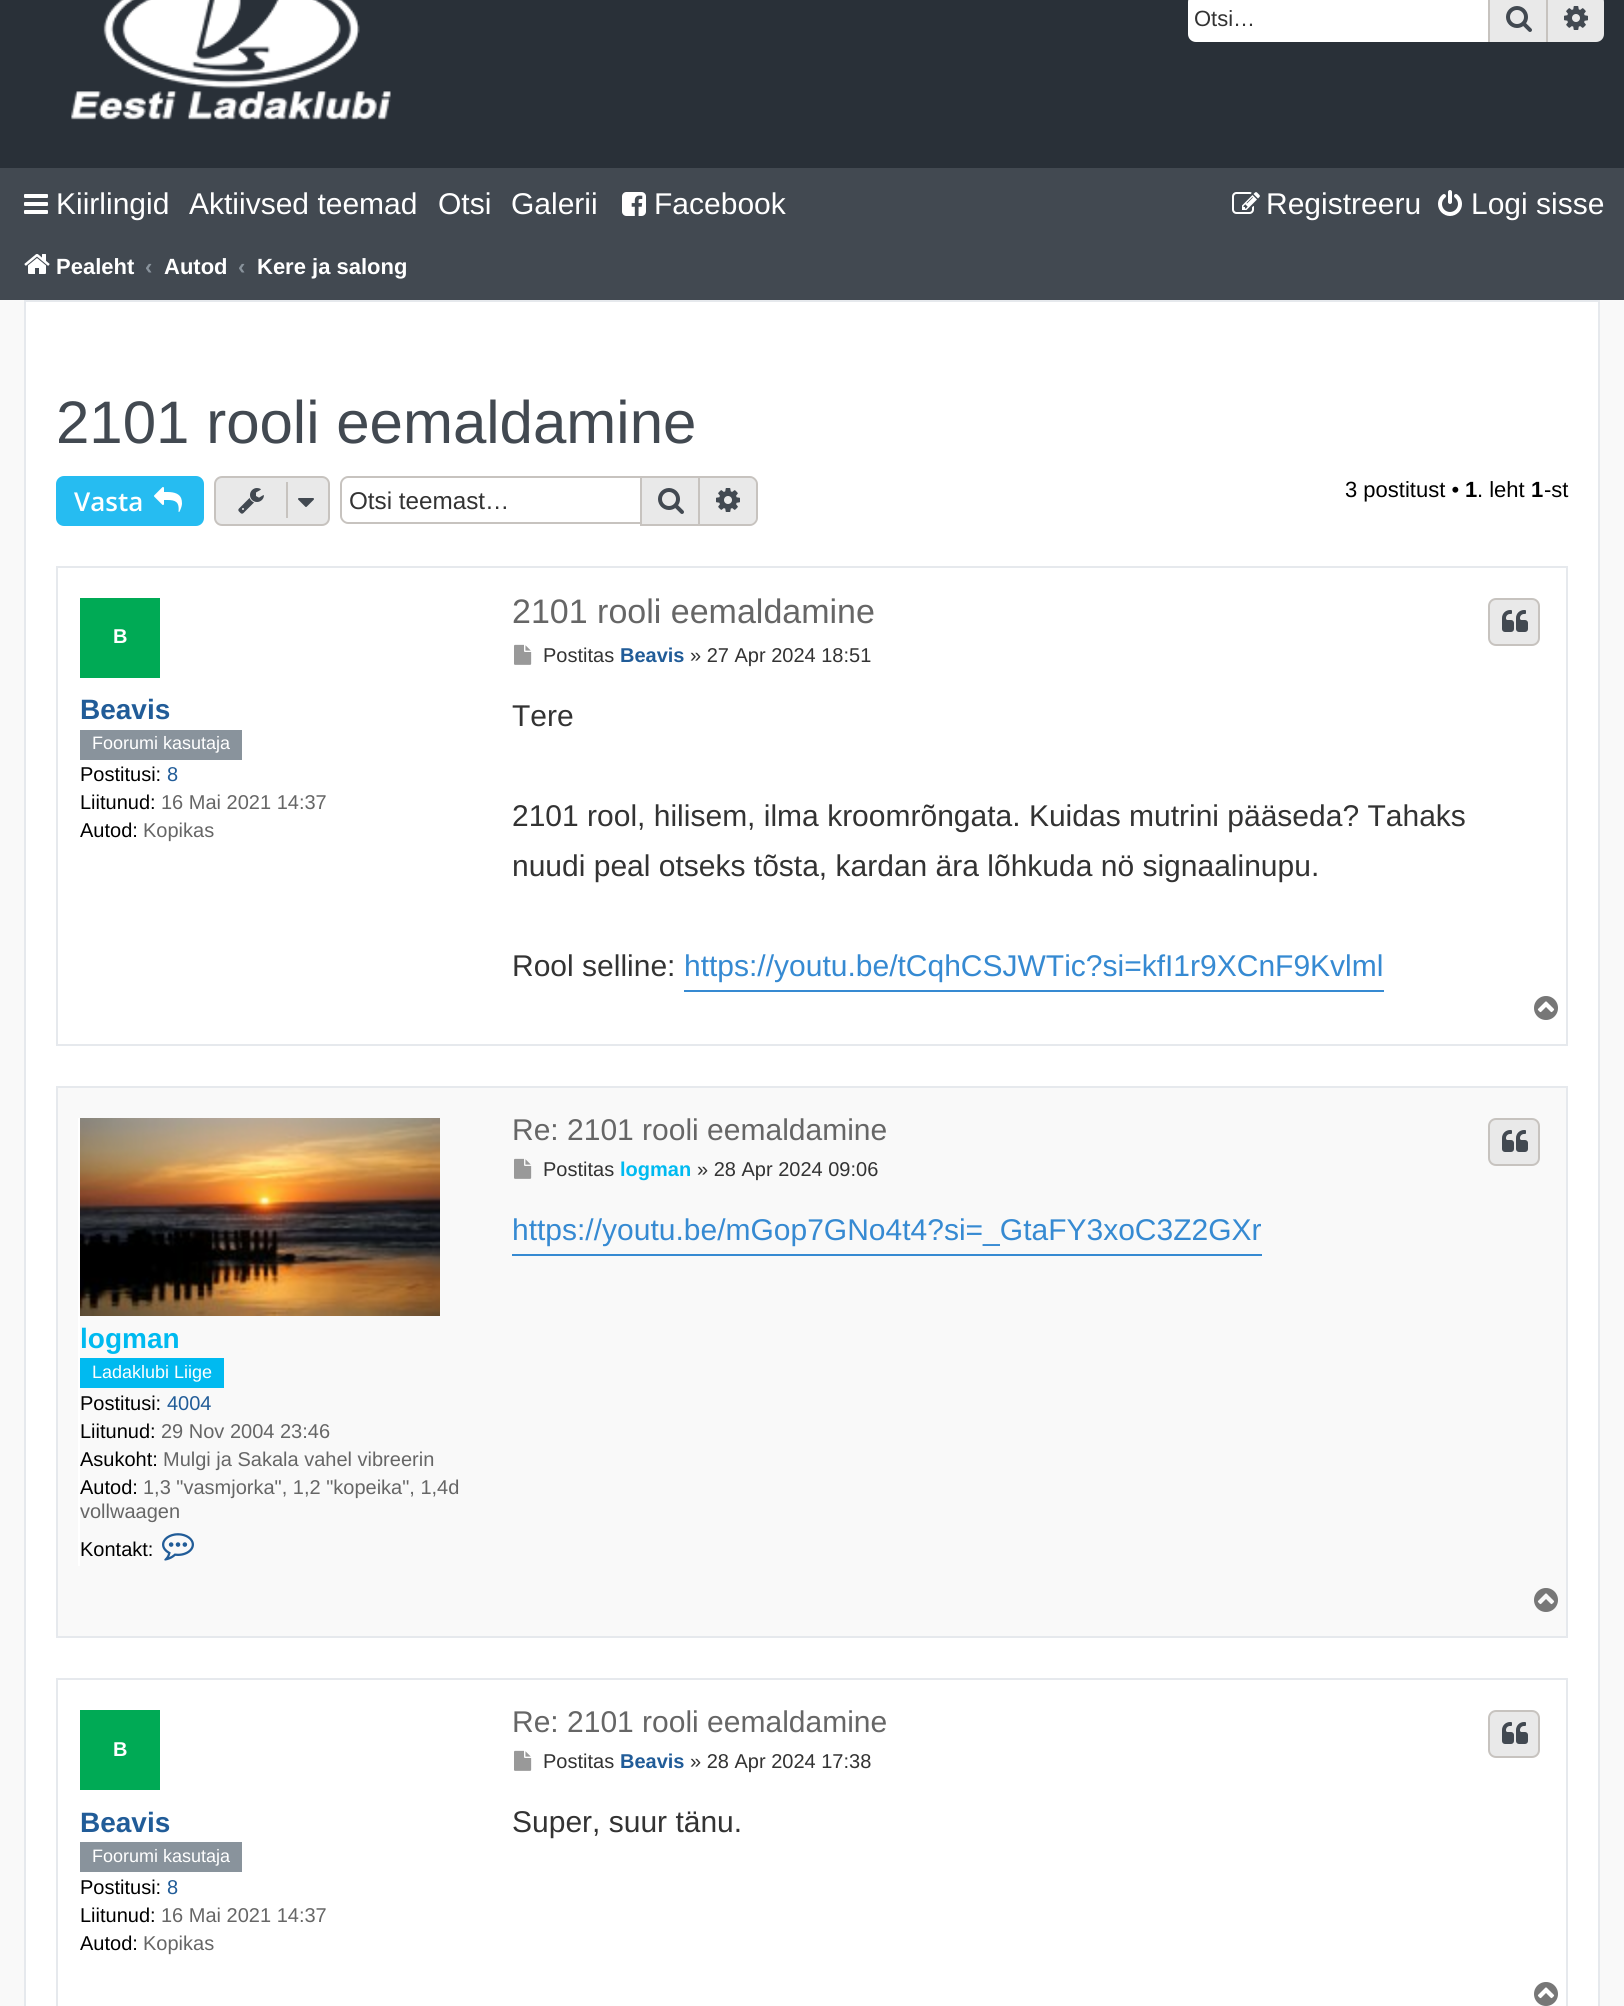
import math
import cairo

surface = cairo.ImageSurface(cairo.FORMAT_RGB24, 1624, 2006)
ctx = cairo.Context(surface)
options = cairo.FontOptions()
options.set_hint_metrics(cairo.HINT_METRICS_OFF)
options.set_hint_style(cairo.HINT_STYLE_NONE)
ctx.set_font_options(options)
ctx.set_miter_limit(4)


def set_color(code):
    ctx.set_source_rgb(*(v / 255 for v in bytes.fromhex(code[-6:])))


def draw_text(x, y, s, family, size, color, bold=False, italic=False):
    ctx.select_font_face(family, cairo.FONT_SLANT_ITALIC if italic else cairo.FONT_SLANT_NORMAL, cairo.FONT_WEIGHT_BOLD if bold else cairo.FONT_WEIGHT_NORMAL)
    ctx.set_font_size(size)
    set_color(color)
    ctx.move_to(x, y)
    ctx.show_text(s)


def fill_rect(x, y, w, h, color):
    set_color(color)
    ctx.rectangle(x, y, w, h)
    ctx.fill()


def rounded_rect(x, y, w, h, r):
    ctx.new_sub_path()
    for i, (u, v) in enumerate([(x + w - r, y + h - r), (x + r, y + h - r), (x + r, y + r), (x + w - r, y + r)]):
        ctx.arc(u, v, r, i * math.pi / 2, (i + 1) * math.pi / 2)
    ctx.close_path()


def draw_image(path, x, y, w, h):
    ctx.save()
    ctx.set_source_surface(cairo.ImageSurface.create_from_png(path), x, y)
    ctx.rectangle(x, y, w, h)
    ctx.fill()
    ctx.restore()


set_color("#f9f9f9")
ctx.paint()
fill_rect(0, 0, 1624, 168, "#293038")
draw_image("assets/img1.png", 71, 0, 320, 120)
set_color("#ffffff")
ctx.new_path()
ctx.move_to(1196, -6)
ctx.line_to(1488, -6)
ctx.line_to(1488, 42)
ctx.line_to(1196, 42)
ctx.curve_to(1191.5, 42, 1188, 38.5, 1188, 34)
ctx.line_to(1188, 2)
ctx.curve_to(1188, -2.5, 1191.5, -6, 1196, -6)
ctx.close_path()
ctx.fill()
draw_text(1194, 26, "Otsi…", "Liberation Sans", 22, "#333333")
fill_rect(1490, 0, 56, 42, "#e9e9e9")
fill_rect(1546, 0, 2, 42, "#c7c3bf")
fill_rect(1488, 0, 2, 42, "#c7c3bf")
draw_image("assets/img2.png", 1506, 6, 26, 26)
set_color("#e9e9e9")
ctx.new_path()
ctx.move_to(1548, -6)
ctx.line_to(1596, -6)
ctx.curve_to(1600.5, -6, 1604, -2.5, 1604, 2)
ctx.line_to(1604, 34)
ctx.curve_to(1604, 38.5, 1600.5, 42, 1596, 42)
ctx.line_to(1548, 42)
ctx.close_path()
ctx.fill()
draw_image("assets/img3.png", 1564, 6, 24, 24)
fill_rect(0, 168, 1624, 132, "#424951")
draw_image("assets/img4.png", 24, 194, 24, 20)
draw_text(56, 214, "Kiirlingid", "Liberation Sans", 30, "#ffffff")
draw_text(189, 214, "Aktiivsed teemad", "Liberation Sans", 30, "#ffffff")
draw_text(438, 214, "Otsi", "Liberation Sans", 30, "#ffffff")
draw_text(511, 214, "Galerii", "Liberation Sans", 30, "#ffffff")
draw_image("assets/img5.png", 622, 192, 24, 24)
draw_text(654, 214, "Facebook", "Liberation Sans", 30, "#ffffff")
draw_image("assets/img6.png", 1232, 192, 28, 22)
draw_text(1266, 214, "Registreeru", "Liberation Sans", 30, "#ffffff")
draw_image("assets/img7.png", 1438, 190, 24, 26)
draw_text(1471, 214, "Logi sisse", "Liberation Sans", 30, "#ffffff")
draw_image("assets/img8.png", 24, 254, 26, 20)
draw_text(56, 274, "Pealeht", "Liberation Sans", 22, "#ffffff", bold=True)
draw_text(145, 274, "‹", "Liberation Sans", 22, "#89939c", bold=True)
draw_text(164, 274, "Autod", "Liberation Sans", 22, "#ffffff", bold=True)
draw_text(238, 274, "‹", "Liberation Sans", 22, "#89939c", bold=True)
draw_text(257, 274, "Kere ja salong", "Liberation Sans", 22, "#ffffff", bold=True)
ctx.rectangle(25, 301, 1574, 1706)
ctx.fill_preserve()
set_color("#e6e9ed")
ctx.stroke()
draw_text(56, 443, "2101 rooli eemaldamine", "Liberation Sans", 60, "#424951")
set_color("#26bcf1")
rounded_rect(57, 477, 146, 48, 7)
ctx.fill_preserve()
ctx.stroke()
draw_text(74, 511, "Vasta", "Open Sans SemiBold", 26, "#ffffff")
draw_image("assets/img9.png", 154, 487, 28, 25)
set_color("#e9e9e9")
rounded_rect(215, 477, 114, 48, 7)
ctx.fill_preserve()
set_color("#c7c3bf")
ctx.stroke()
draw_image("assets/img10.png", 238, 488, 26, 26)
fill_rect(286, 482, 2, 36, "#c7c3bf")
draw_image("assets/img11.png", 298, 498, 16, 9)
ctx.set_fill_rule(cairo.FILL_RULE_EVEN_ODD)
ctx.new_path()
ctx.move_to(348, 476)
ctx.line_to(640, 476)
ctx.line_to(640, 524)
ctx.line_to(348, 524)
ctx.curve_to(344, 524, 340, 520, 340, 516)
ctx.line_to(340, 484)
ctx.curve_to(340, 480, 344, 476, 348, 476)
ctx.close_path()
ctx.move_to(348, 478)
ctx.line_to(640, 478)
ctx.line_to(640, 522)
ctx.line_to(348, 522)
ctx.curve_to(345, 522, 342, 519, 342, 516)
ctx.line_to(342, 484)
ctx.curve_to(342, 481, 345, 478, 348, 478)
ctx.close_path()
ctx.fill()
draw_text(349, 509, "Otsi teemast…", "Liberation Sans", 24.25, "#333333")
set_color("#e9e9e9")
ctx.rectangle(641, 477, 58, 48)
ctx.fill_preserve()
set_color("#c7c3bf")
ctx.stroke()
draw_image("assets/img2.png", 658, 488, 26, 26)
set_color("#e9e9e9")
ctx.new_path()
ctx.move_to(700, 478)
ctx.line_to(750, 478)
ctx.curve_to(753.5, 478, 756, 480.5, 756, 484)
ctx.line_to(756, 518)
ctx.curve_to(756, 521.5, 753.5, 524, 750, 524)
ctx.line_to(700, 524)
ctx.close_path()
ctx.fill()
set_color("#c7c3bf")
ctx.new_path()
ctx.move_to(700, 476)
ctx.line_to(750, 476)
ctx.curve_to(754, 476, 758, 480, 758, 484)
ctx.line_to(758, 518)
ctx.curve_to(758, 522, 754, 526, 750, 526)
ctx.line_to(700, 526)
ctx.close_path()
ctx.move_to(700, 478)
ctx.line_to(750, 478)
ctx.curve_to(753, 478, 756, 481, 756, 484)
ctx.line_to(756, 518)
ctx.curve_to(756, 521, 753, 524, 750, 524)
ctx.line_to(700, 524)
ctx.close_path()
ctx.fill()
draw_image("assets/img3.png", 716, 488, 24, 24)
draw_text(1345, 497, "3 postitust •", "Liberation Sans", 22, "#000000")
draw_text(1465, 497, "1", "Liberation Sans", 22, "#000000", bold=True)
draw_text(1477, 497, ". leht", "Liberation Sans", 22, "#000000")
draw_text(1531, 497, "1", "Liberation Sans", 22, "#000000", bold=True)
draw_text(1544, 497, "-st", "Liberation Sans", 22, "#000000")
ctx.rectangle(57, 567, 1510, 478)
set_color("#e6e9ed")
ctx.stroke()
fill_rect(80, 598, 80, 80, "#00aa55")
draw_text(113, 643, "B", "Liberation Sans", 20, "#ffffff", bold=True)
draw_text(80, 719, "Beavis", "Liberation Sans", 28, "#215c98", bold=True)
fill_rect(80, 730, 162, 30, "#89939c")
draw_text(92, 749, "Foorumi kasutaja", "Liberation Sans", 18, "#ffffff")
draw_text(80, 781, "Postitusi:", "Liberation Sans", 20, "#000000")
draw_text(167, 781, "8", "Liberation Sans", 20, "#215c98")
draw_text(80, 809, "Liitunud:", "Liberation Sans", 20, "#000000")
draw_text(161, 809, "16 Mai 2021 14:37", "Liberation Sans", 20, "#666666")
draw_text(80, 837, "Autod:", "Liberation Sans", 20, "#000000")
draw_text(143, 837, "Kopikas", "Liberation Sans", 20, "#666666")
draw_text(512, 623, "2101 rooli eemaldamine", "Liberation Sans", 34, "#666666")
set_color("#e9e9e9")
rounded_rect(1489, 599, 50, 46, 7)
ctx.fill_preserve()
set_color("#c7c3bf")
ctx.stroke()
draw_image("assets/img12.png", 1502, 610, 26, 22)
draw_image("assets/img13.png", 514, 644, 18, 21)
draw_text(543, 662, "Postitas", "Liberation Sans", 20, "#333333")
draw_text(620, 662, "Beavis", "Liberation Sans", 20, "#215c98", bold=True)
draw_text(690, 662, "» 27 Apr 2024 18:51", "Liberation Sans", 20, "#333333")
draw_text(512, 726, "Tere", "Liberation Sans", 30, "#333333")
draw_text(512, 826, "2101 rool, hilisem, ilma kroomrõngata. Kuidas mutrini pääseda? Tahaks", "Liberation Sans", 30, "#333333")
draw_text(512, 876, "nuudi peal otseks tõsta, kardan ära lõhkuda nö signaalinupu.", "Liberation Sans", 30, "#333333")
draw_text(512, 976, "Rool selline:", "Liberation Sans", 30, "#333333")
fill_rect(684, 990, 700, 2, "#368ad2")
draw_text(684, 976, "https://youtu.be/tCqhCSJWTic?si=kfI1r9XCnF9Kvlml", "Liberation Sans", 30, "#368ad2")
draw_image("assets/img14.png", 1534, 996, 24, 24)
set_color("#f9f9f9")
ctx.rectangle(57, 1087, 1510, 550)
ctx.fill_preserve()
set_color("#e6e9ed")
ctx.stroke()
draw_text(512, 1140, "Re: 2101 rooli eemaldamine", "Liberation Sans", 30, "#666666")
set_color("#e9e9e9")
rounded_rect(1489, 1119, 50, 46, 7)
ctx.fill_preserve()
set_color("#c7c3bf")
ctx.stroke()
draw_image("assets/img12.png", 1502, 1130, 26, 22)
draw_image("assets/img15.png", 514, 1158, 18, 21)
draw_text(543, 1176, "Postitas", "Liberation Sans", 20, "#333333")
draw_text(620, 1176, "logman", "Liberation Sans", 20, "#00baf0", bold=True)
draw_text(697, 1176, "» 28 Apr 2024 09:06", "Liberation Sans", 20, "#333333")
fill_rect(512, 1254, 750, 2, "#368ad2")
draw_text(512, 1240, "https://youtu.be/mGop7GNo4t4?si=_GtaFY3xoC3Z2GXr", "Liberation Sans", 30, "#368ad2")
fill_rect(78, 1118, 2, 448, "#ffffff")
draw_image("assets/img16.png", 80, 1118, 360, 198)
draw_text(80, 1348, "logman", "Liberation Sans", 28, "#00baf0", bold=True)
fill_rect(80, 1358, 144, 30, "#00baf0")
draw_text(92, 1378, "Ladaklubi Liige", "Liberation Sans", 18, "#ffffff")
draw_text(80, 1410, "Postitusi:", "Liberation Sans", 20, "#000000")
draw_text(167, 1410, "4004", "Liberation Sans", 20, "#215c98")
draw_text(80, 1438, "Liitunud:", "Liberation Sans", 20, "#000000")
draw_text(161, 1438, "29 Nov 2004 23:46", "Liberation Sans", 20, "#666666")
draw_text(80, 1466, "Asukoht:", "Liberation Sans", 20, "#000000")
draw_text(163, 1466, "Mulgi ja Sakala vahel vibreerin", "Liberation Sans", 20, "#666666")
draw_text(80, 1494, "Autod:", "Liberation Sans", 20, "#000000")
draw_text(143, 1494, "1,3 \"vasmjorka\", 1,2 \"kopeika\", 1,4d", "Liberation Sans", 20, "#666666")
draw_text(80, 1518, "vollwaagen", "Liberation Sans", 20, "#666666")
draw_text(80, 1556, "Kontakt:", "Liberation Sans", 20, "#000000")
draw_image("assets/img17.png", 162, 1533, 32, 28)
draw_image("assets/img18.png", 1534, 1588, 24, 24)
ctx.rectangle(57, 1679, 1510, 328)
set_color("#e6e9ed")
ctx.stroke()
fill_rect(80, 1710, 80, 80, "#00aa55")
draw_text(113, 1756, "B", "Liberation Sans", 20, "#ffffff", bold=True)
draw_text(80, 1832, "Beavis", "Liberation Sans", 28, "#215c98", bold=True)
fill_rect(80, 1842, 162, 30, "#89939c")
draw_text(92, 1862, "Foorumi kasutaja", "Liberation Sans", 18, "#ffffff")
draw_text(80, 1894, "Postitusi:", "Liberation Sans", 20, "#000000")
draw_text(167, 1894, "8", "Liberation Sans", 20, "#215c98")
draw_text(80, 1922, "Liitunud:", "Liberation Sans", 20, "#000000")
draw_text(161, 1922, "16 Mai 2021 14:37", "Liberation Sans", 20, "#666666")
draw_text(80, 1950, "Autod:", "Liberation Sans", 20, "#000000")
draw_text(143, 1950, "Kopikas", "Liberation Sans", 20, "#666666")
draw_text(512, 1732, "Re: 2101 rooli eemaldamine", "Liberation Sans", 30, "#666666")
set_color("#e9e9e9")
rounded_rect(1489, 1711, 50, 46, 7)
ctx.fill_preserve()
set_color("#c7c3bf")
ctx.stroke()
draw_image("assets/img12.png", 1502, 1722, 26, 22)
draw_image("assets/img13.png", 514, 1750, 18, 21)
draw_text(543, 1768, "Postitas", "Liberation Sans", 20, "#333333")
draw_text(620, 1768, "Beavis", "Liberation Sans", 20, "#215c98", bold=True)
draw_text(690, 1768, "» 28 Apr 2024 17:38", "Liberation Sans", 20, "#333333")
draw_text(512, 1832, "Super, suur tänu.", "Liberation Sans", 30, "#333333")
draw_image("assets/img14.png", 1534, 1982, 24, 24)
surface.write_to_png("output.png")
